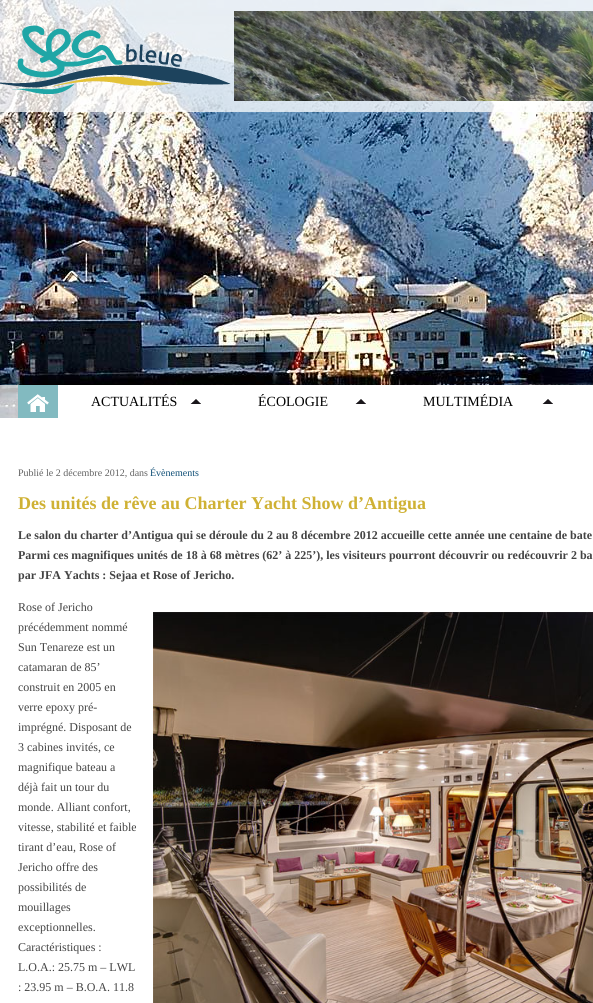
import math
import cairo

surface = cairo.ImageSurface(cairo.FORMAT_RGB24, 593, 1003)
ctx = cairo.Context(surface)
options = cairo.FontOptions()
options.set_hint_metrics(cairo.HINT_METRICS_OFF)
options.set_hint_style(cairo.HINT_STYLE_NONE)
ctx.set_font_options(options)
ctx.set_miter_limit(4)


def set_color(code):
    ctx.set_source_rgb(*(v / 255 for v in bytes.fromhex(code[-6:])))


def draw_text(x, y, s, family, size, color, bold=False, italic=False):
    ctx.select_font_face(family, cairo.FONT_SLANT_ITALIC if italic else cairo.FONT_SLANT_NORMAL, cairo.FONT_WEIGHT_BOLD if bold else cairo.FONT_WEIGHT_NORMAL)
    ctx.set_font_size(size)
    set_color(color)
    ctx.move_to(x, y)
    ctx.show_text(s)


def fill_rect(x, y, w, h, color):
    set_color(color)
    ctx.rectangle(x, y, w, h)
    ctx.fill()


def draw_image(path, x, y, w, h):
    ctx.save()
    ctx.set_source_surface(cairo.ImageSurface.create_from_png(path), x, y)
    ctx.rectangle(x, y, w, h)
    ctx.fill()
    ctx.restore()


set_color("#ffffff")
ctx.paint()
draw_image("assets/img1.png", 0, 0, 593, 418)
draw_image("assets/img2.png", 0, 0, 593, 418)
draw_image("assets/img3.png", 0, 25, 231, 69)
draw_image("assets/img4.png", 234, 11, 359, 90)
draw_image("assets/img5.png", 18, 385, 40, 33)
fill_rect(58, 385, 535, 33, "#ffffff")
draw_image("assets/img6.png", 190, 399, 11, 5)
draw_text(91, 406, "ACTUALITÉS", "Liberation Serif", 14, "#000000")
draw_image("assets/img6.png", 355, 399, 11, 5)
draw_text(258, 406, "ÉCOLOGIE", "Liberation Serif", 14, "#000000")
draw_image("assets/img6.png", 542, 399, 11, 5)
draw_text(423, 406, "MULTIMÉDIA", "Liberation Serif", 14, "#000000")
draw_text(18, 476, "Publié le 2 décembre 2012, dans", "Liberation Serif", 10, "#626262")
draw_text(150, 476, "Évènements", "Liberation Serif", 10, "#0d4d75")
draw_text(18, 509, "Des unités de rêve au Charter Yacht Show d’Antigua", "Liberation Serif", 18, "#cfb134", bold=True)
draw_text(18, 539, "Le salon du charter d’Antigua qui se déroule du 2 au 8 décembre 2012 accueille cette année une centaine de bate", "Liberation Serif", 12, "#434343", bold=True)
draw_text(18, 559, "Parmi ces magnifiques unités de 18 à 68 mètres (62’ à 225’), les visiteurs pourront découvrir ou redécouvrir 2 ba", "Liberation Serif", 12, "#434343", bold=True)
draw_text(18, 579, "par JFA Yachts : Sejaa et Rose of Jericho.", "Liberation Serif", 12, "#434343", bold=True)
draw_text(18, 611, "Rose of Jericho", "Liberation Serif", 12, "#434343")
draw_text(18, 631, "précédemment nommé", "Liberation Serif", 12, "#434343")
draw_text(18, 651, "Sun Tenareze est un", "Liberation Serif", 12, "#434343")
draw_text(18, 671, "catamaran de 85’", "Liberation Serif", 12, "#434343")
draw_text(18, 691, "construit en 2005 en", "Liberation Serif", 12, "#434343")
draw_text(18, 711, "verre epoxy pré-", "Liberation Serif", 12, "#434343")
draw_text(18, 731, "imprégné. Disposant de", "Liberation Serif", 12, "#434343")
draw_text(18, 751, "3 cabines invités, ce", "Liberation Serif", 12, "#434343")
draw_text(18, 771, "magnifique bateau a", "Liberation Serif", 12, "#434343")
draw_text(18, 791, "déjà fait un tour du", "Liberation Serif", 12, "#434343")
draw_text(18, 811, "monde. Alliant confort,", "Liberation Serif", 12, "#434343")
draw_text(18, 831, "vitesse, stabilité et faible", "Liberation Serif", 12, "#434343")
draw_text(18, 851, "tirant d’eau, Rose of", "Liberation Serif", 12, "#434343")
draw_text(18, 871, "Jericho offre des", "Liberation Serif", 12, "#434343")
draw_text(18, 891, "possibilités de", "Liberation Serif", 12, "#434343")
draw_text(18, 911, "mouillages", "Liberation Serif", 12, "#434343")
draw_text(18, 931, "exceptionnelles.", "Liberation Serif", 12, "#434343")
draw_text(18, 951, "Caractéristiques :", "Liberation Serif", 12, "#434343")
draw_text(18, 971, "L.O.A.: 25.75 m – LWL", "Liberation Serif", 12, "#434343")
draw_text(18, 991, ": 23.95 m – B.O.A. 11.8", "Liberation Serif", 12, "#434343")
draw_image("assets/img7.png", 153, 612, 440, 391)
surface.write_to_png("output.png")
